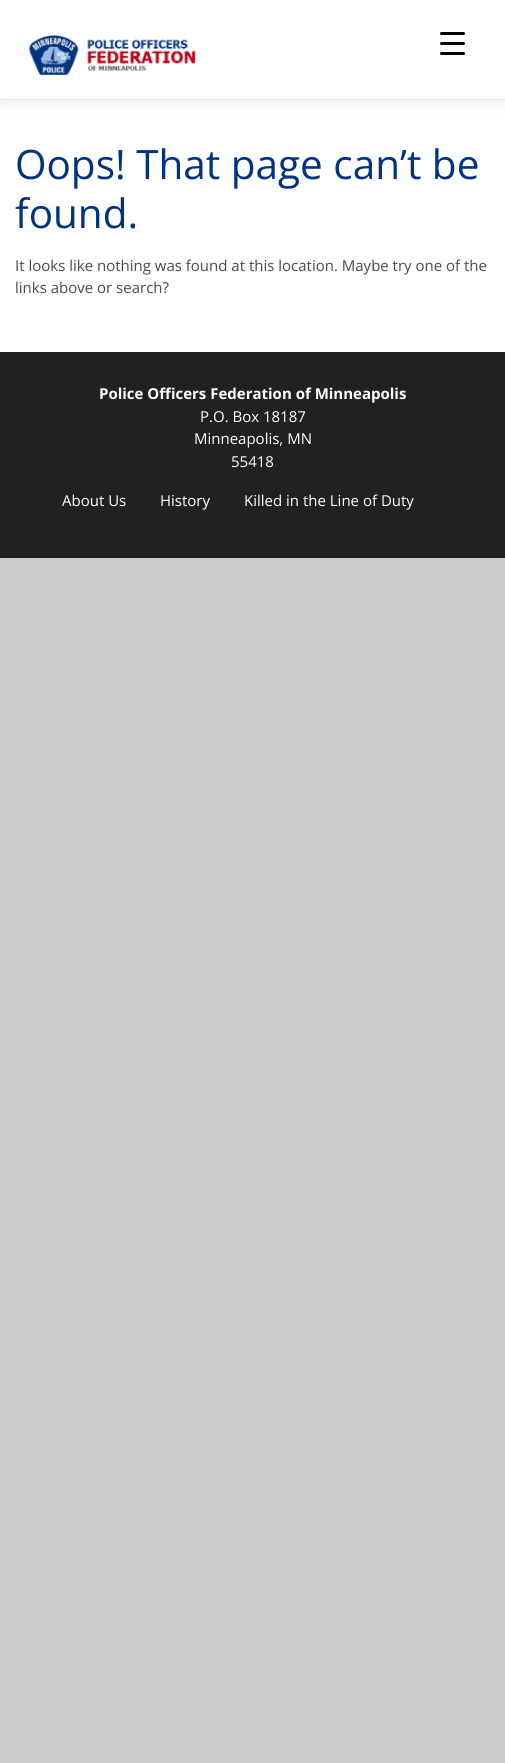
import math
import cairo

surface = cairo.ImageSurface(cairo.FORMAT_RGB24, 505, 1763)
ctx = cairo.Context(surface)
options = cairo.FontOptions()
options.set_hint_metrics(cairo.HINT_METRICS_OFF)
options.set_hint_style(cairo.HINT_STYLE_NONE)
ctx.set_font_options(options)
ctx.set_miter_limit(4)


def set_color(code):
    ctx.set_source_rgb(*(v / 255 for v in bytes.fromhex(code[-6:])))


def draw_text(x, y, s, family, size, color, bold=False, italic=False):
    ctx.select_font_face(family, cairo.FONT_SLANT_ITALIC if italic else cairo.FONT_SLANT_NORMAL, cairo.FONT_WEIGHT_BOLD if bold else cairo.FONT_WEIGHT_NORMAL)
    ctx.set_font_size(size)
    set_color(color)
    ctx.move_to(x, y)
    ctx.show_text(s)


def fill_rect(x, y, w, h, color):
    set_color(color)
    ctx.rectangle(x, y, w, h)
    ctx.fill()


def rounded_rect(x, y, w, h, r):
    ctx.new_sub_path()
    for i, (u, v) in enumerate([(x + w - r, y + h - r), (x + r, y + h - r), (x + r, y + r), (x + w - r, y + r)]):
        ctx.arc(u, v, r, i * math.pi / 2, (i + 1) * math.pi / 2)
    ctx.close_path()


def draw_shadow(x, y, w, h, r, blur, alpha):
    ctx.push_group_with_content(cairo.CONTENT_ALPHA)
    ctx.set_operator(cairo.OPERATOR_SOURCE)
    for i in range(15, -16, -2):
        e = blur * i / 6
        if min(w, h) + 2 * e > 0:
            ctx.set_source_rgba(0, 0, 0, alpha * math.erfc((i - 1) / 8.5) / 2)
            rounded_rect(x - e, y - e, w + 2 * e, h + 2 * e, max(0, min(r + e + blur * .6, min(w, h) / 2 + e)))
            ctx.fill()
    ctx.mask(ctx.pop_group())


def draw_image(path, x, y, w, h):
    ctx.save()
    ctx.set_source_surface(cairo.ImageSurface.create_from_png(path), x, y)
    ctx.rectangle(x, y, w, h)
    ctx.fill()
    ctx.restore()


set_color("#cccccc")
ctx.paint()
fill_rect(0, 100, 505, 252, "#ffffff")
set_color("#000000")
draw_shadow(0, 6, 505, 100, 0, 6.5, 0.05)
fill_rect(0, 0, 505, 99, "#ffffff")
fill_rect(0, 99, 505, 1, "#e6e6e6")
draw_image("assets/img1.png", 28, 35, 168, 40)
set_color("#000000")
rounded_rect(440, 42, 25, 3, 1.5)
ctx.fill()
rounded_rect(440, 32, 25, 3, 1.5)
ctx.fill()
rounded_rect(440, 52, 25, 3, 1.5)
ctx.fill()
draw_text(15, 179, "Oops! That page can’t be", "Open Sans", 40.5, "#00337f")
draw_text(15, 228, "found.", "Open Sans", 40.5, "#00337f")
draw_text(15, 271, "It looks like nothing was found at this location. Maybe try one of the", "Open Sans", 15, "#4b4a4a")
draw_text(15, 293, "links above or search?", "Open Sans", 15, "#4b4a4a")
fill_rect(0, 352, 505, 206, "#212121")
draw_text(99, 399, "Police Officers Federation of Minneapolis", "Open Sans", 15, "#ffffff", bold=True)
draw_text(200, 422, "P.O. Box 18187", "Open Sans", 15, "#ffffff")
draw_text(194, 444, "Minneapolis, MN", "Open Sans", 15, "#ffffff")
draw_text(231, 467, "55418", "Open Sans", 15, "#ffffff")
draw_text(62, 506, "About Us", "Open Sans", 15, "#ffffff")
draw_text(160, 506, "History", "Open Sans", 15, "#ffffff")
draw_text(244, 506, "Killed in the Line of Duty", "Open Sans", 15, "#ffffff")
surface.write_to_png("output.png")
